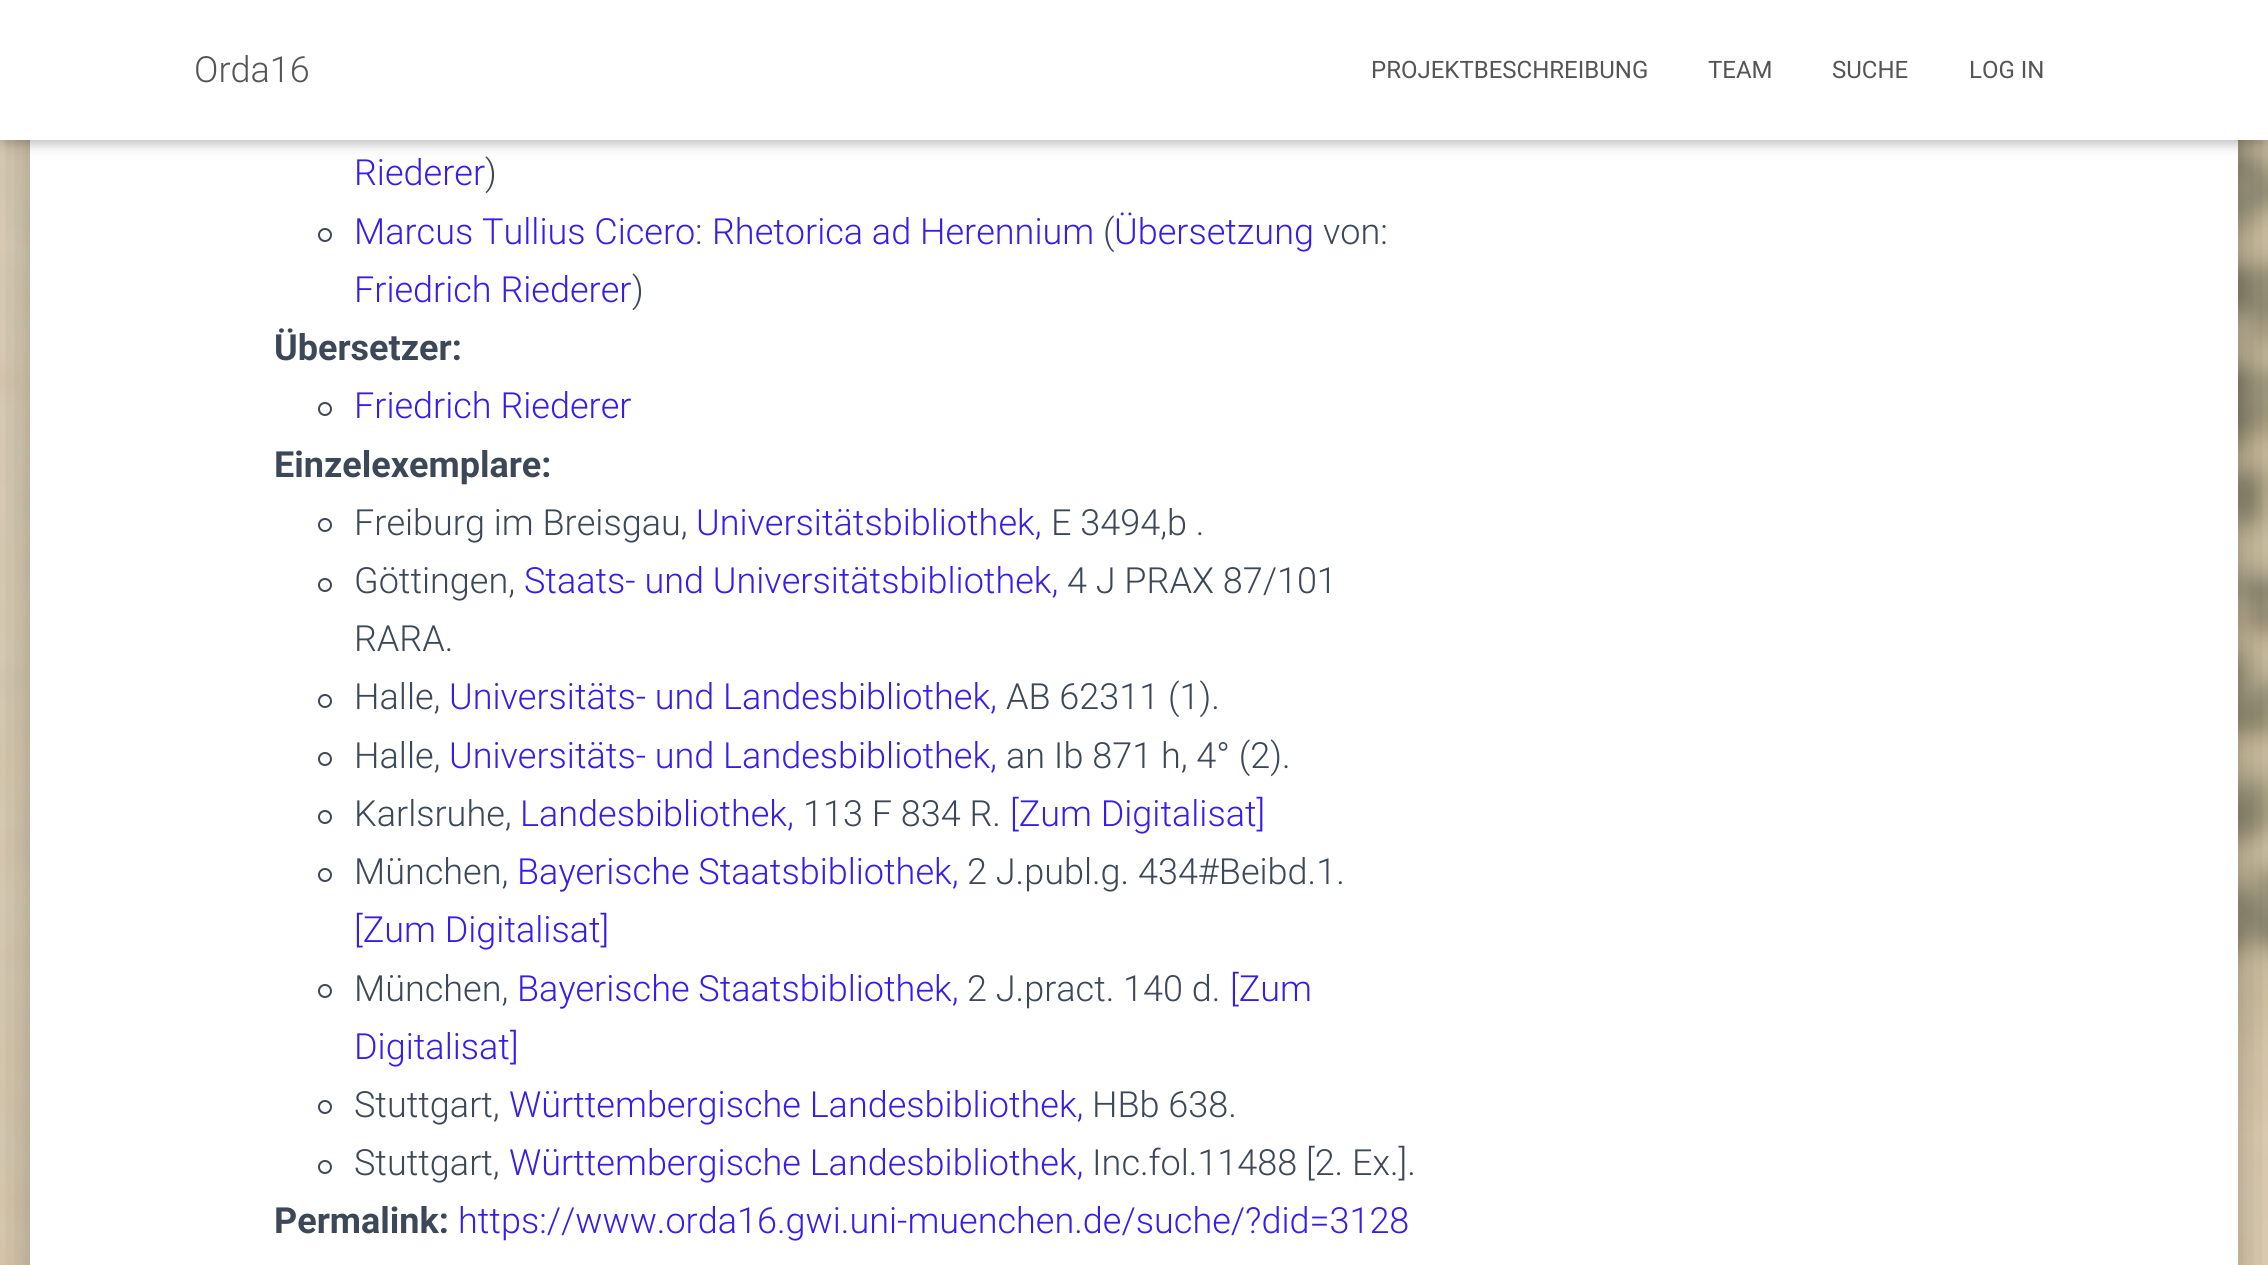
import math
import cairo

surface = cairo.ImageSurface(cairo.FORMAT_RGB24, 2268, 1265)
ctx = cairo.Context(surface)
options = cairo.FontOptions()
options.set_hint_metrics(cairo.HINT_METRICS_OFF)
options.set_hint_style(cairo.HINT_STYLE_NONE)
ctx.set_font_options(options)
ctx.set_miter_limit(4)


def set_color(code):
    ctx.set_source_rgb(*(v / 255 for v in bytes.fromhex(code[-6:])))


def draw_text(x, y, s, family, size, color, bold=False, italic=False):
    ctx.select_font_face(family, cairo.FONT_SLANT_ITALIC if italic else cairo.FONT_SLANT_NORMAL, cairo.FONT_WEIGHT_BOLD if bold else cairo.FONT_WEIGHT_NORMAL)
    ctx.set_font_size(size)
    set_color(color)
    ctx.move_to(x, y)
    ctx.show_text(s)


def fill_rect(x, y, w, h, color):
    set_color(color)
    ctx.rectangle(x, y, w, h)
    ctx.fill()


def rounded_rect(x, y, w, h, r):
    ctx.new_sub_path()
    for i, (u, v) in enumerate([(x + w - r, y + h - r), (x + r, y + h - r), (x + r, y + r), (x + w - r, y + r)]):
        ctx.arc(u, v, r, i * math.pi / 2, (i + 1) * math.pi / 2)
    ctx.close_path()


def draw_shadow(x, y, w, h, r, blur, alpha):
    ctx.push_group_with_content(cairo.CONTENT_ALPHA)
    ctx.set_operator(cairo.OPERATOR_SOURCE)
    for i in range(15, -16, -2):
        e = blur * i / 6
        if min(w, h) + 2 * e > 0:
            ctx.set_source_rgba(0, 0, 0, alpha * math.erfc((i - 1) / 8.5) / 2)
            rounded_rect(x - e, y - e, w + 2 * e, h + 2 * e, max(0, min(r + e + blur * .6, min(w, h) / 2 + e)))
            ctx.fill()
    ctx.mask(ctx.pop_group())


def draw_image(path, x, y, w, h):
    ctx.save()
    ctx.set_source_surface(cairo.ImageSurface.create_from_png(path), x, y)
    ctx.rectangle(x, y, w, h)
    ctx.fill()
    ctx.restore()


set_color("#ffffff")
ctx.paint()
draw_image("assets/img1.png", 0, 140, 2268, 1125)
set_color("#000000")
draw_shadow(40, -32, 2188, 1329, 2, 10, 0.2)
draw_shadow(20, -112, 2228, 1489, 22, 30, 0.12)
draw_shadow(26, -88, 2216, 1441, 16, 24, 0.14)
fill_rect(30, 140, 2208, 1125, "#ffffff")
set_color("#000000")
draw_shadow(4, 12, 2260, 132, 0, 5, 0.1)
draw_shadow(0, 2, 2268, 140, 0, 10, 0.12)
draw_shadow(12, 14, 2244, 116, 0, 10, 0.42)
fill_rect(0, 0, 2268, 140, "#ffffff")
draw_text(194, 82, "Orda16", "Roboto Light", 36, "#555555")
draw_text(1371, 78, "PROJEKTBESCHREIBUNG", "Roboto", 24, "#555555")
draw_text(1708, 78, "TEAM", "Roboto", 24, "#555555")
draw_text(1832, 78, "SUCHE", "Roboto", 24, "#555555")
draw_text(1969, 78, "LOG IN", "Roboto", 24, "#555555")
draw_text(354, 185, "Riederer", "Roboto Light", 36, "#361eea")
draw_text(485, 185, ")", "Roboto Light", 36, "#3c4858")
ctx.new_path()
ctx.arc(325, 235, 6, 0, 2 * math.pi)
ctx.stroke()
draw_text(354, 244, "Marcus Tullius Cicero", "Roboto Light", 36, "#361eea")
draw_text(695, 244, ":", "Roboto Light", 36, "#3c4858")
draw_text(712, 244, "Rhetorica ad Herennium", "Roboto Light", 36, "#361eea")
draw_text(1103, 244, "(", "Roboto Light", 36, "#3c4858")
draw_text(1114, 244, "Übersetzung", "Roboto Light", 36, "#361eea")
draw_text(1323, 244, "von:", "Roboto Light", 36, "#3c4858")
draw_text(354, 302, "Friedrich Riederer", "Roboto Light", 36, "#361eea")
draw_text(632, 302, ")", "Roboto Light", 36, "#3c4858")
draw_text(274, 360, "Übersetzer:", "Roboto", 36, "#3c4858", bold=True)
ctx.new_path()
ctx.arc(325, 409, 6, 0, 2 * math.pi)
ctx.stroke()
draw_text(354, 418, "Friedrich Riederer", "Roboto Light", 36, "#361eea")
draw_text(274, 477, "Einzelexemplare:", "Roboto", 36, "#3c4858", bold=True)
ctx.new_path()
ctx.arc(325, 525, 6, 0, 2 * math.pi)
ctx.stroke()
draw_text(354, 535, "Freiburg im Breisgau,", "Roboto Light", 36, "#3c4858")
draw_text(696, 535, "Universitätsbibliothek,", "Roboto Light", 36, "#361eea")
draw_text(1051, 535, "E 3494,b .", "Roboto Light", 36, "#3c4858")
ctx.new_path()
ctx.arc(325, 585, 6, 0, 2 * math.pi)
ctx.stroke()
draw_text(354, 593, "Göttingen,", "Roboto Light", 36, "#3c4858")
draw_text(524, 593, "Staats- und Universitätsbibliothek,", "Roboto Light", 36, "#361eea")
draw_text(1067, 593, "4 J PRAX 87/101", "Roboto Light", 36, "#3c4858")
draw_text(354, 651, "RARA.", "Roboto Light", 36, "#3c4858")
ctx.new_path()
ctx.arc(325, 701, 6, 0, 2 * math.pi)
ctx.stroke()
draw_text(354, 709, "Halle,", "Roboto Light", 36, "#3c4858")
draw_text(449, 709, "Universitäts- und Landesbibliothek,", "Roboto Light", 36, "#361eea")
draw_text(1006, 709, "AB 62311 (1).", "Roboto Light", 36, "#3c4858")
ctx.new_path()
ctx.arc(325, 759, 6, 0, 2 * math.pi)
ctx.stroke()
draw_text(354, 768, "Halle,", "Roboto Light", 36, "#3c4858")
draw_text(449, 768, "Universitäts- und Landesbibliothek,", "Roboto Light", 36, "#361eea")
draw_text(1006, 768, "an Ib 871 h, 4° (2).", "Roboto Light", 36, "#3c4858")
ctx.new_path()
ctx.arc(325, 817, 6, 0, 2 * math.pi)
ctx.stroke()
draw_text(354, 826, "Karlsruhe,", "Roboto Light", 36, "#3c4858")
draw_text(520, 826, "Landesbibliothek,", "Roboto Light", 36, "#361eea")
draw_text(803, 826, "113 F 834 R.", "Roboto Light", 36, "#3c4858")
draw_text(1010, 826, "[Zum Digitalisat]", "Roboto Light", 36, "#361eea")
ctx.new_path()
ctx.arc(325, 875, 6, 0, 2 * math.pi)
set_color("#3c4858")
ctx.stroke()
draw_text(354, 884, "München,", "Roboto Light", 36, "#3c4858")
draw_text(517, 884, "Bayerische Staatsbibliothek,", "Roboto Light", 36, "#361eea")
draw_text(967, 884, "2 J.publ.g. 434#Beibd.1.", "Roboto Light", 36, "#3c4858")
draw_text(354, 942, "[Zum Digitalisat]", "Roboto Light", 36, "#361eea")
ctx.new_path()
ctx.arc(325, 991, 6, 0, 2 * math.pi)
set_color("#3c4858")
ctx.stroke()
draw_text(354, 1001, "München,", "Roboto Light", 36, "#3c4858")
draw_text(517, 1001, "Bayerische Staatsbibliothek,", "Roboto Light", 36, "#361eea")
draw_text(967, 1001, "2 J.pract. 140 d.", "Roboto Light", 36, "#3c4858")
draw_text(1230, 1001, "[Zum", "Roboto Light", 36, "#361eea")
draw_text(354, 1059, "Digitalisat]", "Roboto Light", 36, "#361eea")
ctx.new_path()
ctx.arc(325, 1107, 6, 0, 2 * math.pi)
set_color("#3c4858")
ctx.stroke()
draw_text(354, 1117, "Stuttgart,", "Roboto Light", 36, "#3c4858")
draw_text(509, 1117, "Württembergische Landesbibliothek,", "Roboto Light", 36, "#361eea")
draw_text(1092, 1117, "HBb 638.", "Roboto Light", 36, "#3c4858")
ctx.new_path()
ctx.arc(325, 1167, 6, 0, 2 * math.pi)
ctx.stroke()
draw_text(354, 1175, "Stuttgart,", "Roboto Light", 36, "#3c4858")
draw_text(509, 1175, "Württembergische Landesbibliothek,", "Roboto Light", 36, "#361eea")
draw_text(1092, 1175, "Inc.fol.11488 [2. Ex.].", "Roboto Light", 36, "#3c4858")
draw_text(274, 1233, "Permalink:", "Roboto", 36, "#3c4858", bold=True)
draw_text(458, 1233, "https://www.orda16.gwi.uni-muenchen.de/suche/?did=3128", "Roboto Light", 36, "#361eea")
surface.write_to_png("output.png")
